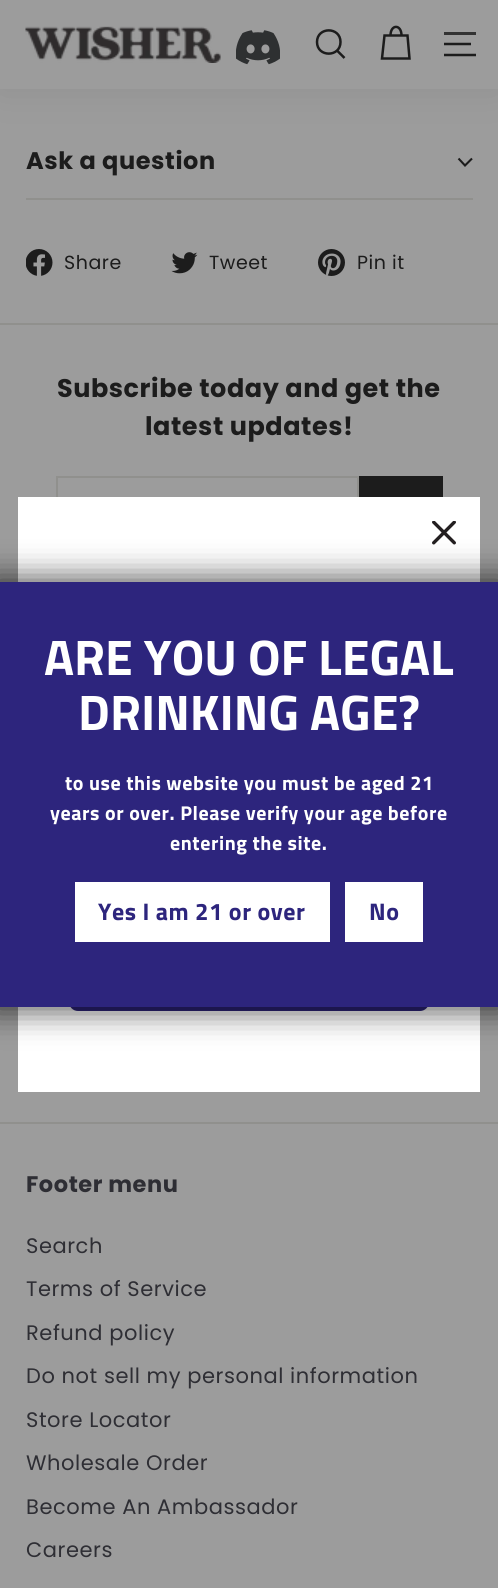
import math
import cairo

surface = cairo.ImageSurface(cairo.FORMAT_RGB24, 498, 1588)
ctx = cairo.Context(surface)
options = cairo.FontOptions()
options.set_hint_metrics(cairo.HINT_METRICS_OFF)
options.set_hint_style(cairo.HINT_STYLE_NONE)
ctx.set_font_options(options)
ctx.set_miter_limit(4)


def set_color(code):
    ctx.set_source_rgb(*(v / 255 for v in bytes.fromhex(code[-6:])))


def draw_text(x, y, s, family, size, color, bold=False, italic=False):
    ctx.select_font_face(family, cairo.FONT_SLANT_ITALIC if italic else cairo.FONT_SLANT_NORMAL, cairo.FONT_WEIGHT_BOLD if bold else cairo.FONT_WEIGHT_NORMAL)
    ctx.set_font_size(size)
    set_color(color)
    ctx.move_to(x, y)
    ctx.show_text(s)


def draw_spaced(x, y, s, letter, word):
    ctx.move_to(x, y)
    for ch in s:
        ctx.show_text(ch)
        ctx.rel_move_to(letter + word * (ch == ' '), 0)


def fill_rect(x, y, w, h, color):
    set_color(color)
    ctx.rectangle(x, y, w, h)
    ctx.fill()


def rounded_rect(x, y, w, h, r):
    ctx.new_sub_path()
    for i, (u, v) in enumerate([(x + w - r, y + h - r), (x + r, y + h - r), (x + r, y + r), (x + w - r, y + r)]):
        ctx.arc(u, v, r, i * math.pi / 2, (i + 1) * math.pi / 2)
    ctx.close_path()


def draw_shadow(x, y, w, h, r, blur, alpha):
    ctx.push_group_with_content(cairo.CONTENT_ALPHA)
    ctx.set_operator(cairo.OPERATOR_SOURCE)
    for i in range(15, -16, -2):
        e = blur * i / 6
        if min(w, h) + 2 * e > 0:
            ctx.set_source_rgba(0, 0, 0, alpha * math.erfc((i - 1) / 8.5) / 2)
            rounded_rect(x - e, y - e, w + 2 * e, h + 2 * e, max(0, min(r + e + blur * .6, min(w, h) / 2 + e)))
            ctx.fill()
    ctx.mask(ctx.pop_group())


def draw_image(path, x, y, w, h):
    ctx.save()
    ctx.set_source_surface(cairo.ImageSurface.create_from_png(path), x, y)
    ctx.rectangle(x, y, w, h)
    ctx.fill()
    ctx.restore()


set_color("#9c9c9c")
ctx.paint()
set_color("#1c1c1c")
draw_shadow(0, 0, 498, 89, 0, 19, 0.1)
fill_rect(0, 0, 498, 89, "#9c9c9c")
draw_image("assets/img1.png", 25, 26, 196, 37)
draw_image("assets/img2.png", 236, 30, 44, 35)
ctx.new_path()
ctx.move_to(340.5, 42)
ctx.curve_to(340.5, 57.5, 317, 57.5, 317, 42)
ctx.curve_to(317, 26.5, 340.5, 26.5, 340.5, 42)
ctx.close_path()
ctx.move_to(344.5, 58)
ctx.line_to(337, 50.5)
set_color("#1c1c1c")
ctx.set_line_width(2.5)
ctx.stroke()
ctx.new_path()
ctx.move_to(390.5, 35.5)
ctx.curve_to(390.5, 24, 401.5, 24, 401.5, 35.5)
ctx.move_to(384.5, 35.5)
ctx.line_to(407.5, 35.5)
ctx.line_to(409.5, 58.5)
ctx.line_to(382, 58.5)
ctx.close_path()
ctx.stroke()
fill_rect(444, 32, 32, 3, "#323232")
ctx.new_path()
ctx.move_to(444, 44)
ctx.line_to(471, 44)
ctx.move_to(444, 55)
ctx.line_to(476, 55)
set_color("#1c1c1c")
ctx.stroke()
fill_rect(26, 198, 447, 2, "#90908d")
ctx.select_font_face("Poppins", cairo.FONT_SLANT_NORMAL, cairo.FONT_WEIGHT_BOLD)
ctx.set_font_size(24)
set_color("#1c1c1c")
draw_spaced(26, 169, "Ask a question", 0.6, 0)
ctx.new_path()
ctx.move_to(458.5, 158.5)
ctx.line_to(465, 165.5)
ctx.line_to(472, 158.5)
ctx.set_line_width(2.1)
ctx.stroke()
draw_image("assets/img3.png", 26, 249, 27, 27)
ctx.select_font_face("Poppins")
ctx.set_font_size(19)
draw_spaced(64, 269, "Share", 0.55, 0)
draw_image("assets/img4.png", 171, 252, 27, 22)
draw_spaced(209, 269, "Tweet", 0.55, 0)
draw_image("assets/img5.png", 318, 249, 27, 27)
draw_spaced(357, 269, "Pin it", 0.55, 0)
fill_rect(0, 323, 498, 2, "#90908d")
ctx.select_font_face("Poppins", cairo.FONT_SLANT_NORMAL, cairo.FONT_WEIGHT_BOLD)
ctx.set_font_size(25.5)
set_color("#1c1c1c")
draw_spaced(57, 397, "Subscribe today and get the", 0.55, 0)
draw_spaced(145, 435, "latest updates!", 0.55, 0)
ctx.rectangle(57, 477, 301, 68)
set_color("#90908d")
ctx.set_line_width(2)
ctx.stroke()
fill_rect(359, 476, 84, 21, "#1c1c1c")
fill_rect(0, 1122, 498, 2, "#90908d")
ctx.set_font_size(22.5)
set_color("#2e2e34")
draw_spaced(26, 1192, "Footer menu", 0.55, 0)
ctx.select_font_face("Poppins")
ctx.set_font_size(21)
draw_spaced(26, 1253, "Search", 0.55, 0)
draw_spaced(26, 1296, "Terms of Service", 0.55, 0)
draw_spaced(26, 1340, "Refund policy", 0.55, 0)
draw_spaced(26, 1383, "Do not sell my personal information", 0.55, 0)
draw_spaced(26, 1427, "Store Locator", 0.55, 0)
draw_spaced(26, 1470, "Wholesale Order", 0.55, 0)
draw_spaced(26, 1514, "Become An Ambassador", 0.55, 0)
draw_spaced(26, 1557, "Careers", 0.55, 0)
fill_rect(18, 497, 462, 595, "#ffffff")
set_color("#2d247d")
rounded_rect(67.5, 931.5, 363, 81, 10.5)
ctx.fill_preserve()
set_color("#ffffff")
ctx.set_line_width(3)
ctx.stroke()
draw_image("assets/img6.png", 432, 521, 24, 24)
set_color("#000000")
draw_shadow(-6, 576, 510, 437, 0, 15, 0.6)
fill_rect(0, 582, 498, 425, "#2d257d")
draw_text(44, 675, "ARE YOU OF LEGAL", "Titillium Web", 50, "#ffffff", bold=True)
draw_text(78, 730, "DRINKING AGE?", "Titillium Web", 50, "#ffffff", bold=True)
ctx.set_font_size(20)
draw_spaced(65, 790, "to use this website you must be aged 21", 0.55, 0)
draw_spaced(50, 820, "years or over. Please verify your age before", 0.55, 0)
draw_spaced(170, 850, "entering the site.", 0.55, 0)
fill_rect(75, 882, 255, 60, "#ffffff")
ctx.set_font_size(24)
set_color("#2d257d")
draw_spaced(98, 920, "Yes I am 21 or over", 0.55, 0)
fill_rect(345, 882, 78, 60, "#ffffff")
set_color("#2d257d")
draw_spaced(369, 920, "No", 0.55, 0)
surface.write_to_png("output.png")
